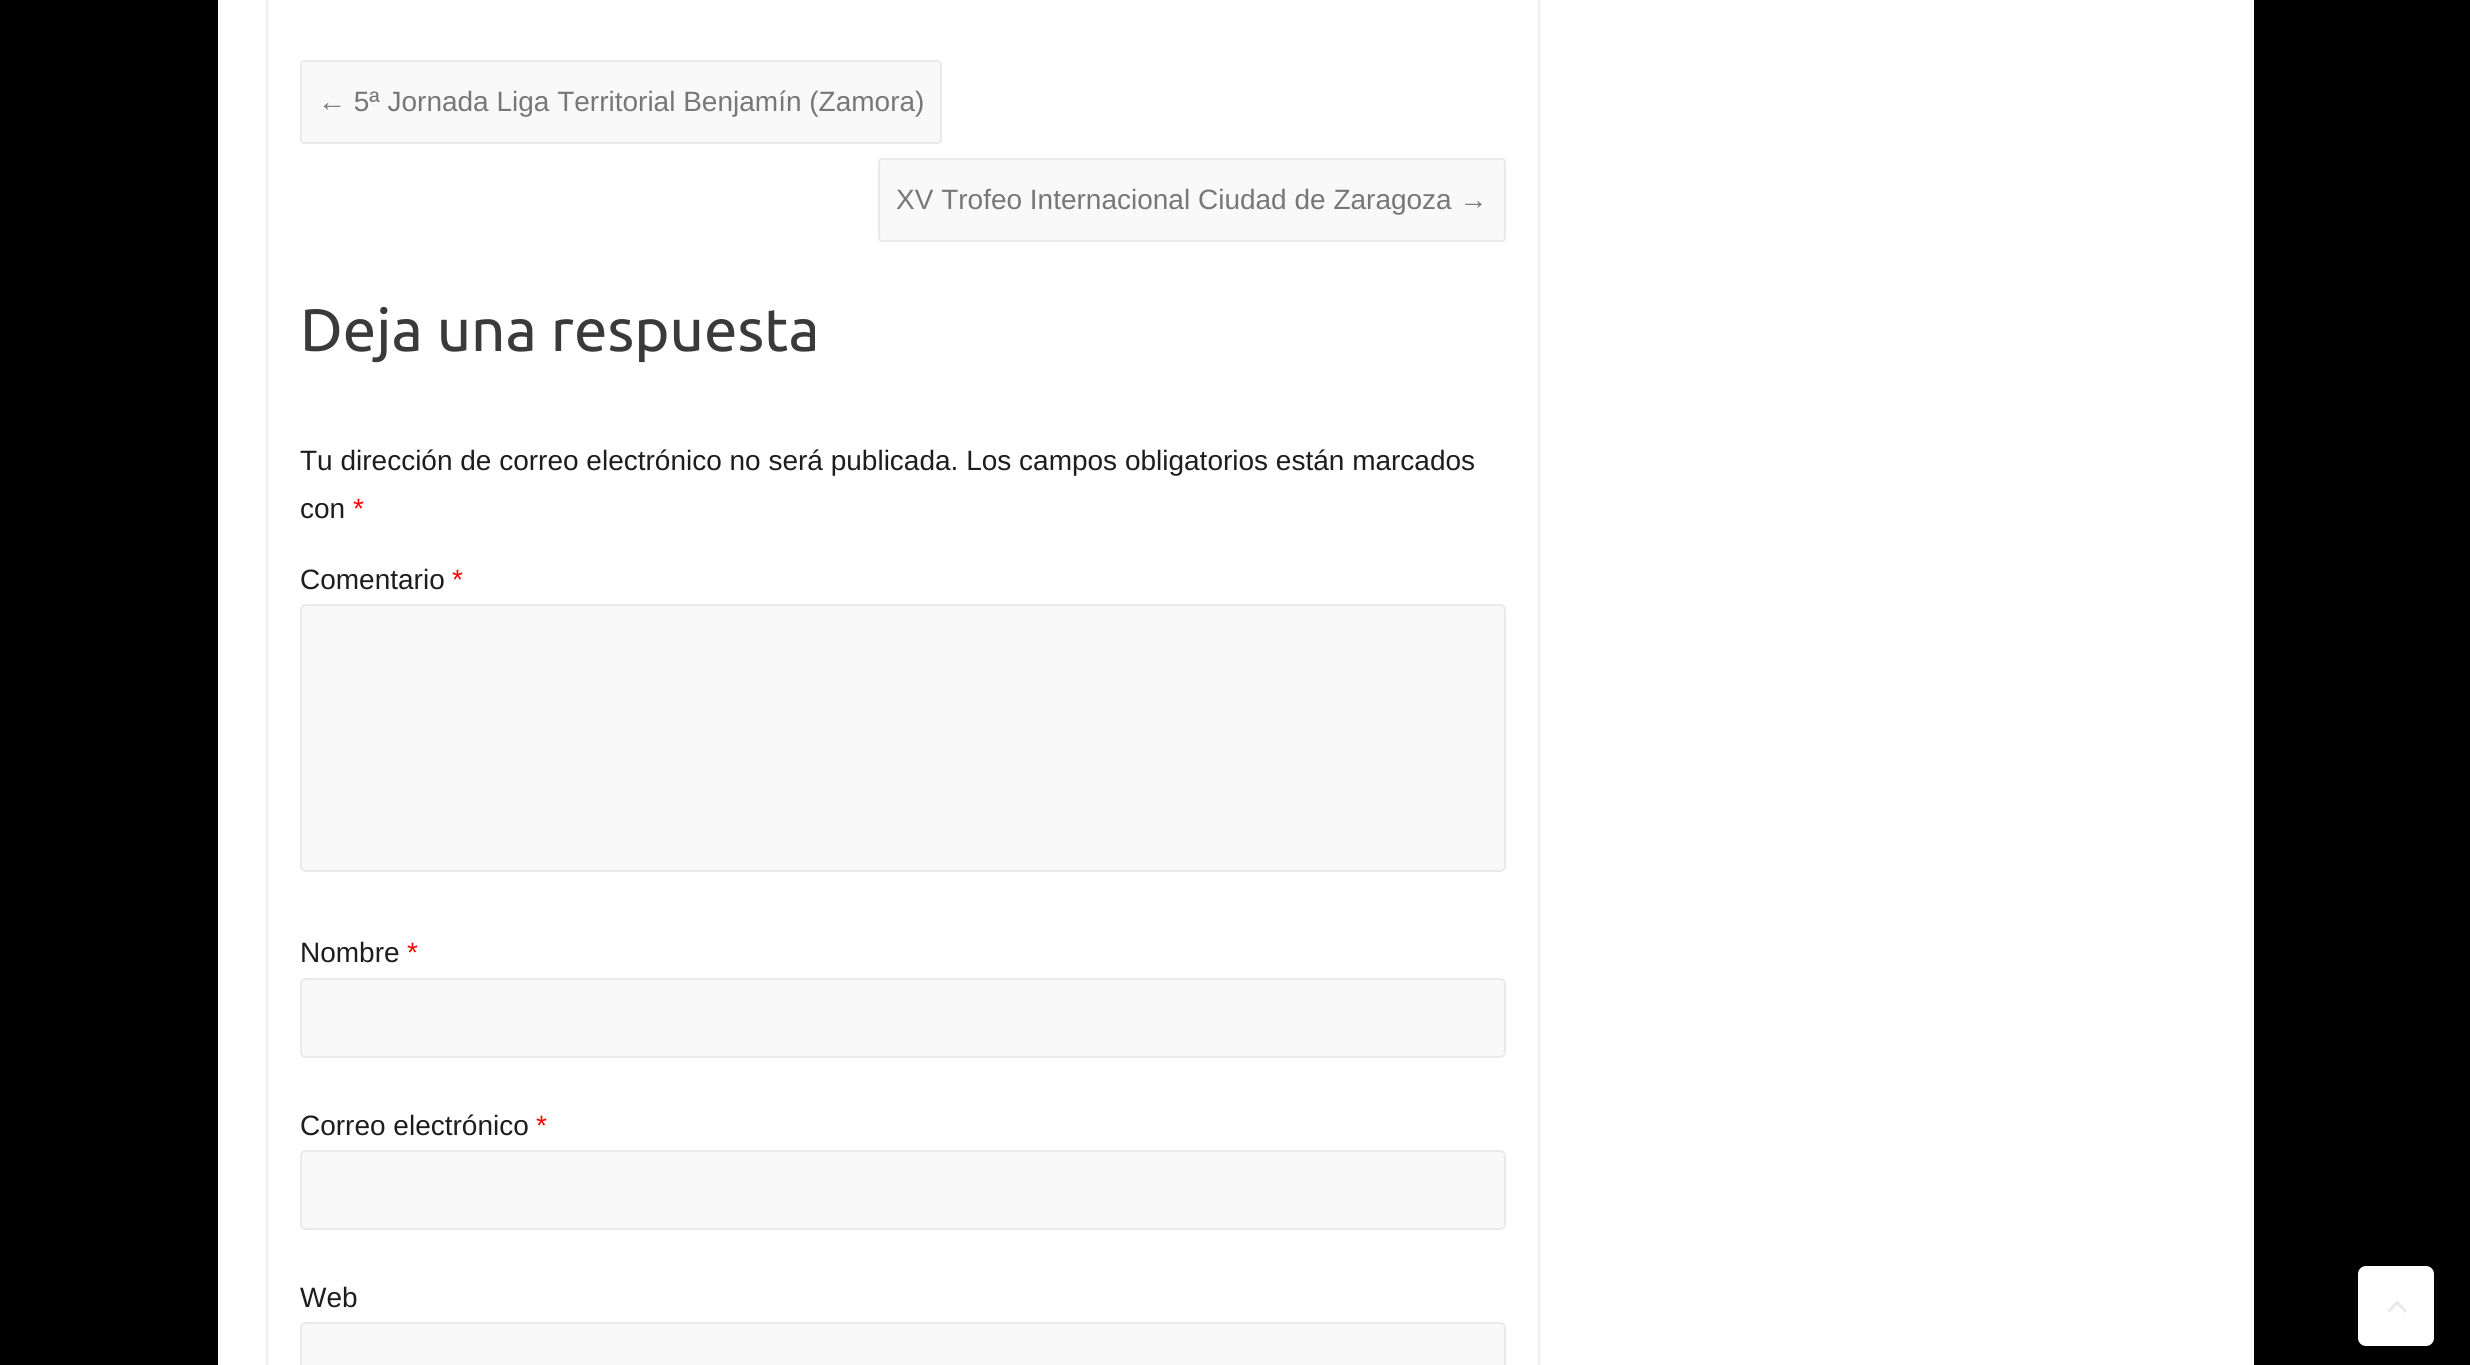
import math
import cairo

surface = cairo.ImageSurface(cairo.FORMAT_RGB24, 2470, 1365)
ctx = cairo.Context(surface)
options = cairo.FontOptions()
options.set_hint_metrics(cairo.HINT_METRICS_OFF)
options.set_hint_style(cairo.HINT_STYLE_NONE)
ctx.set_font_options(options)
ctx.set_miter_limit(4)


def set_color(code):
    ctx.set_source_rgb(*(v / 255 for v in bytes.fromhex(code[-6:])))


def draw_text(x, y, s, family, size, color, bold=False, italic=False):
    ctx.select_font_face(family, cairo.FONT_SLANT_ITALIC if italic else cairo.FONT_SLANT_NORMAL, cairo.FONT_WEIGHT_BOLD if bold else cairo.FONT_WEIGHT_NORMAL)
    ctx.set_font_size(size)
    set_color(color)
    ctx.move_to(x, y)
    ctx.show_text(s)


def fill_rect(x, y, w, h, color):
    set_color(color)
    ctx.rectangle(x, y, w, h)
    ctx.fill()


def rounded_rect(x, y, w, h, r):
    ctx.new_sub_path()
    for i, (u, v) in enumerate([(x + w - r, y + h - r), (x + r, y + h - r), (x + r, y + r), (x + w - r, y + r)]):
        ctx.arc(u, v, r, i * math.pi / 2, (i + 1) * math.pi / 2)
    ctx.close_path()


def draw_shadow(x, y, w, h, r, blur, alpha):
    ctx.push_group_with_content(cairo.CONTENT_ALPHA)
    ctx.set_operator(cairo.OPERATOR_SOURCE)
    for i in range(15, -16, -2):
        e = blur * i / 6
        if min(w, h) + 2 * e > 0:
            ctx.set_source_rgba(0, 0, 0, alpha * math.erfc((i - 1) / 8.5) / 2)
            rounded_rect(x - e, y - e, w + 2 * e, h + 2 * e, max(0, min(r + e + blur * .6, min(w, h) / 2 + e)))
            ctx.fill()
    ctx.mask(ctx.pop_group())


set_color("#000000")
ctx.paint()
fill_rect(218, 0, 2036, 1365, "#ffffff")
ctx.save()
ctx.set_fill_rule(cairo.FILL_RULE_EVEN_ODD)
ctx.new_path()
ctx.move_to(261, 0)
ctx.line_to(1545, 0)
ctx.line_to(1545, 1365)
ctx.line_to(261, 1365)
ctx.close_path()
ctx.move_to(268, -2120)
ctx.line_to(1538, -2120)
ctx.line_to(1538, 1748)
ctx.line_to(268, 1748)
ctx.close_path()
ctx.clip()
set_color("#000000")
draw_shadow(268, -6, 1270, 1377, 0, 2, 0.2)
ctx.restore()
set_color("#f9f9f9")
rounded_rect(301, 61, 640, 82, 3)
ctx.fill_preserve()
set_color("#eaeaea")
ctx.stroke()
draw_text(318, 111, "← 5ª Jornada Liga Territorial Benjamín (Zamora)", "Liberation Sans", 28, "#777777")
set_color("#f9f9f9")
rounded_rect(879, 159, 626, 82, 3)
ctx.fill_preserve()
set_color("#eaeaea")
ctx.stroke()
draw_text(896, 209, "XV Trofeo Internacional Ciudad de Zaragoza →", "Liberation Sans", 28, "#777777")
draw_text(300, 351, "Deja una respuesta", "Ubuntu", 60, "#3a3a3a")
draw_text(300, 470, "Tu dirección de correo electrónico no será publicada. Los campos obligatorios están marcados", "Liberation Sans", 28, "#1d1d1d")
draw_text(300, 518, "con", "Liberation Sans", 28, "#1d1d1d")
draw_text(353, 518, "*", "Liberation Sans", 28, "#ff0000")
draw_text(300, 589, "Comentario", "Liberation Sans", 28, "#1d1d1d")
draw_text(452, 589, "*", "Liberation Sans", 28, "#ff0000")
set_color("#f9f9f9")
rounded_rect(301, 605, 1204, 266, 5)
ctx.fill_preserve()
set_color("#eaeaea")
ctx.stroke()
draw_text(300, 962, "Nombre", "Liberation Sans", 28, "#1d1d1d")
draw_text(407, 962, "*", "Liberation Sans", 28, "#ff0000")
set_color("#f9f9f9")
rounded_rect(301, 979, 1204, 78, 5)
ctx.fill_preserve()
set_color("#eaeaea")
ctx.stroke()
draw_text(300, 1135, "Correo electrónico", "Liberation Sans", 28, "#1d1d1d")
draw_text(536, 1135, "*", "Liberation Sans", 28, "#ff0000")
set_color("#f9f9f9")
rounded_rect(301, 1151, 1204, 78, 5)
ctx.fill_preserve()
set_color("#eaeaea")
ctx.stroke()
draw_text(300, 1307, "Web", "Liberation Sans", 28, "#1d1d1d")
set_color("#f9f9f9")
rounded_rect(301, 1323, 1204, 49, 5)
ctx.fill_preserve()
set_color("#eaeaea")
ctx.stroke()
set_color("#ffffff")
rounded_rect(2358, 1266, 76, 80, 8)
ctx.fill()
set_color("#eaeaea")
ctx.new_path()
ctx.move_to(2405, 1313)
ctx.line_to(2397, 1305)
ctx.line_to(2389, 1313)
ctx.line_to(2387, 1310.5)
ctx.line_to(2397, 1300.5)
ctx.line_to(2407, 1310.5)
ctx.close_path()
ctx.fill()
surface.write_to_png("output.png")
